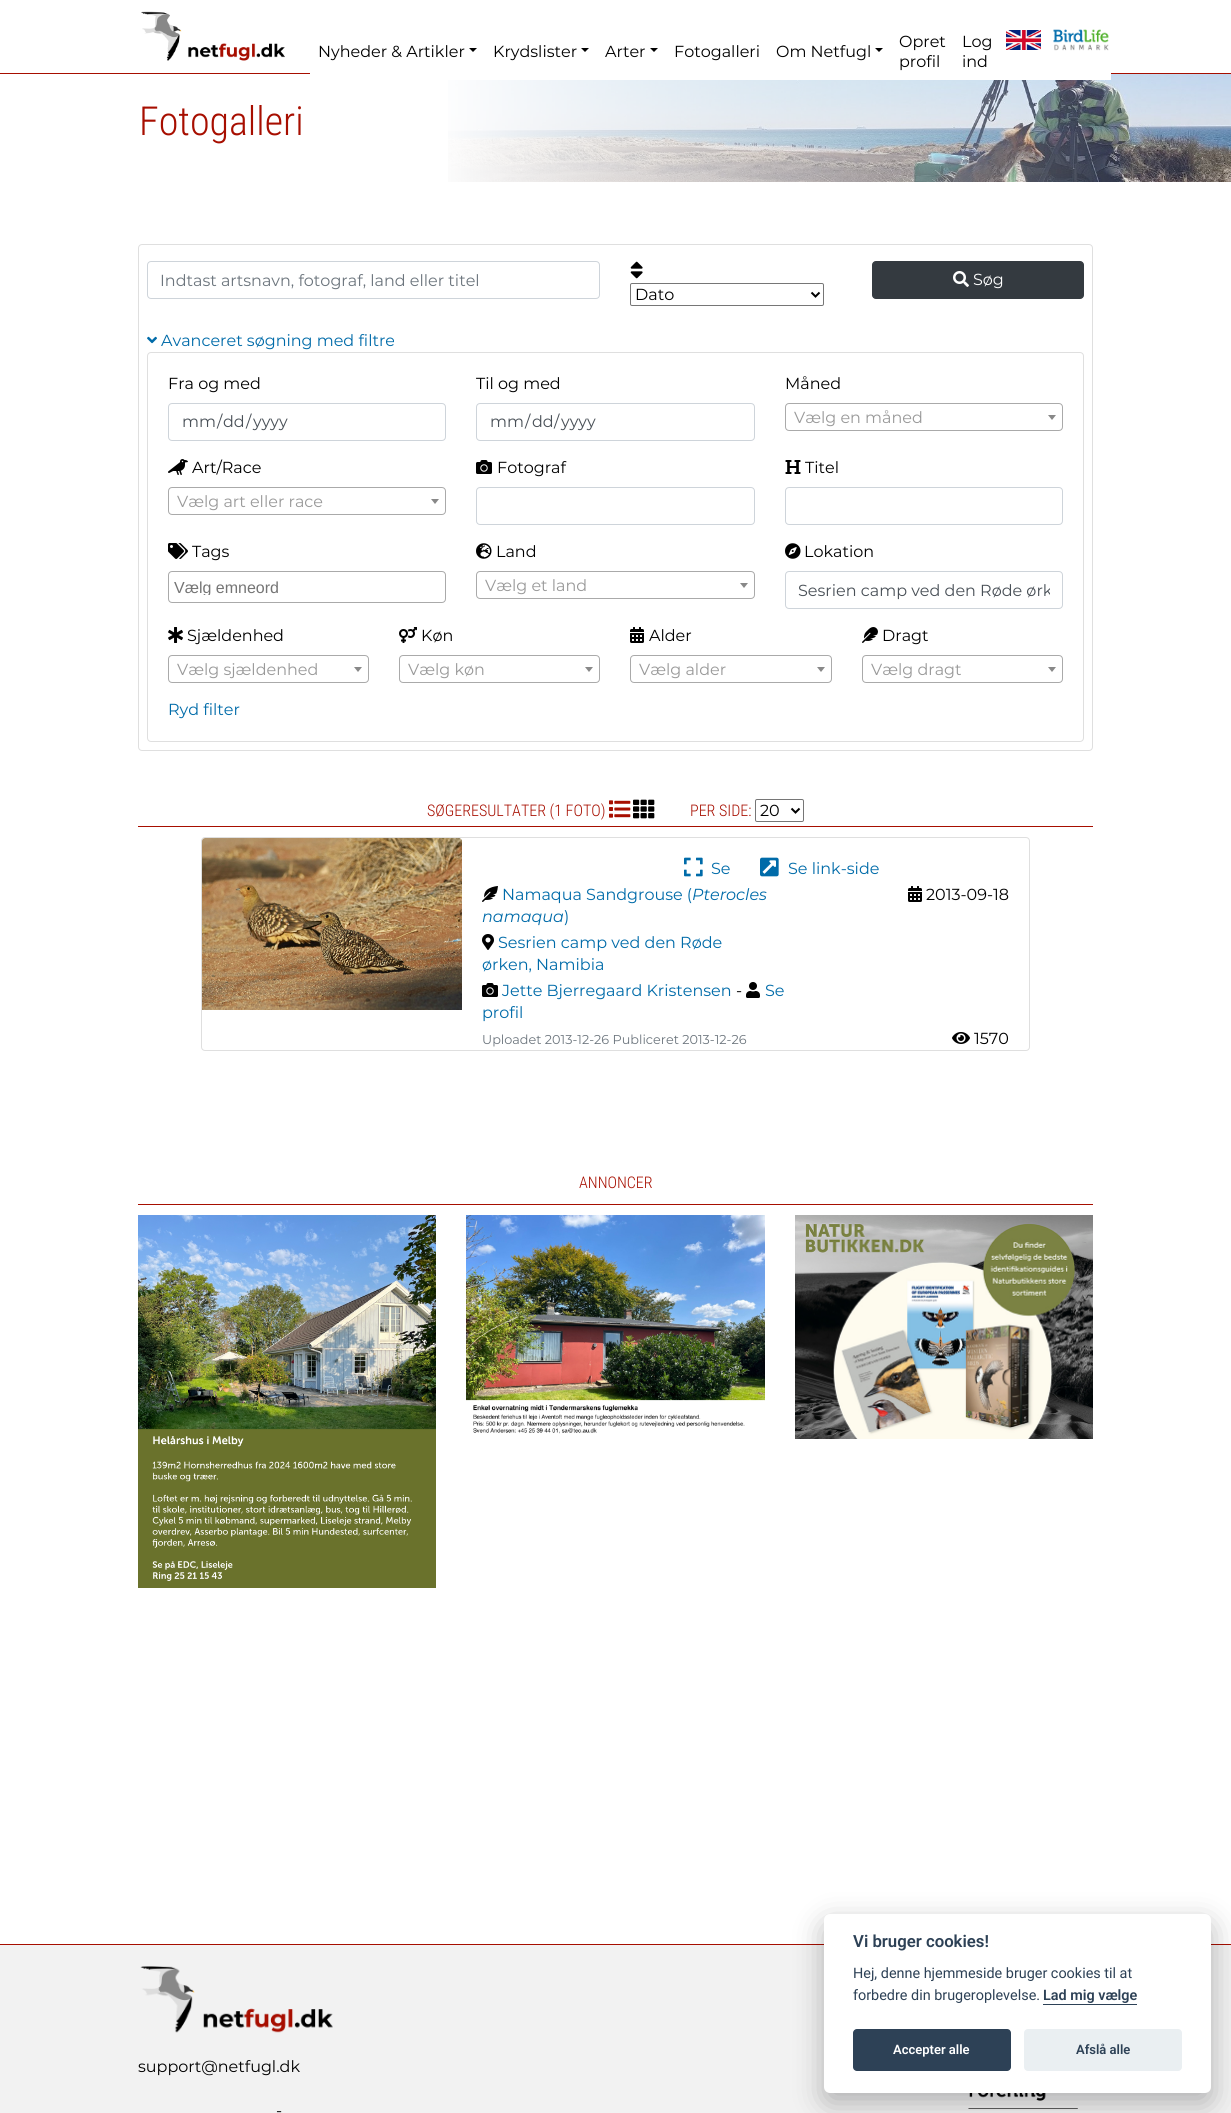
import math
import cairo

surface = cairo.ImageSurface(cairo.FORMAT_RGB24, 1231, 2113)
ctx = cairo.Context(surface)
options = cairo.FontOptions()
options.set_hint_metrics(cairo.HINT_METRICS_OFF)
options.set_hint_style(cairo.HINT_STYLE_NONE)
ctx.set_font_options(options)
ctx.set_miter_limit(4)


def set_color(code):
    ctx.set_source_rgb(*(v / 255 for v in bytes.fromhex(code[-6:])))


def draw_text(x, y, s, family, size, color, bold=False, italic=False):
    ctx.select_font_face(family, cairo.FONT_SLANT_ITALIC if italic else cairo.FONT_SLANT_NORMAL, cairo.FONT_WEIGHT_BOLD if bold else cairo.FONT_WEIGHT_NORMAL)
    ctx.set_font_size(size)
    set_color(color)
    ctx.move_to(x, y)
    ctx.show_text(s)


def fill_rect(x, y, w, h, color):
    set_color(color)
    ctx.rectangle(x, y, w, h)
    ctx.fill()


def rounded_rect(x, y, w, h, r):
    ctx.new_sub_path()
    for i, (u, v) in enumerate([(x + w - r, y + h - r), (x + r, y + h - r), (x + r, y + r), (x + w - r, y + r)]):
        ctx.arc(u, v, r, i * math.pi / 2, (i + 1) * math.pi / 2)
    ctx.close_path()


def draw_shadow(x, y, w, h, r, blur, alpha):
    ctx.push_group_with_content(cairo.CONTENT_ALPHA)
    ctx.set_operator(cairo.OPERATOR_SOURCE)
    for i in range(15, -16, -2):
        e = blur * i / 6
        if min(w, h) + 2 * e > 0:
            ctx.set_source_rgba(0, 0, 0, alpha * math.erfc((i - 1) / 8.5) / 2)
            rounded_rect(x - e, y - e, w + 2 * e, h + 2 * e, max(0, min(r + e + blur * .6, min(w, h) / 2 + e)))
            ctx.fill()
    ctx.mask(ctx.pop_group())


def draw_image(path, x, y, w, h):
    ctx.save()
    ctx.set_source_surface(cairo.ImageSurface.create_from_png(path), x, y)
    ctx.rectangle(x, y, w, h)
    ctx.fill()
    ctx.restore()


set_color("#ffffff")
ctx.paint()
fill_rect(0, 73, 1231, 1, "#a70e00")
draw_image("assets/img1.png", 141, 11, 144, 50)
draw_image("assets/img4.png", 448, 74, 783, 108)
fill_rect(310, 73, 801, 7, "#ffffff")
draw_text(318, 57, "Nyheder & Artikler", "Montserrat", 16, "#000000")
ctx.new_path()
ctx.move_to(469, 48)
ctx.line_to(477, 48)
ctx.line_to(473, 52)
ctx.close_path()
ctx.fill()
draw_text(493, 57, "Krydslister", "Montserrat", 16, "#000000")
ctx.new_path()
ctx.move_to(581, 48)
ctx.line_to(589, 48)
ctx.line_to(585, 52)
ctx.close_path()
ctx.fill()
draw_text(605, 57, "Arter", "Montserrat", 16, "#000000")
ctx.new_path()
ctx.move_to(650, 48)
ctx.line_to(658, 48)
ctx.line_to(654, 52)
ctx.close_path()
ctx.fill()
draw_text(674, 57, "Fotogalleri", "Montserrat", 16, "#000000")
draw_text(776, 57, "Om Netfugl", "Montserrat", 16, "#000000")
ctx.new_path()
ctx.move_to(875, 48)
ctx.line_to(883, 48)
ctx.line_to(879, 52)
ctx.close_path()
ctx.fill()
draw_text(899, 47, "Opret", "Montserrat", 16, "#000000")
draw_text(899, 67, "profil", "Montserrat", 16, "#000000")
draw_text(962, 47, "Log", "Montserrat", 16, "#000000")
draw_text(962, 67, "ind", "Montserrat", 16, "#000000")
draw_image("assets/img2.png", 1006, 30, 35, 20)
draw_image("assets/img3.png", 1053, 29, 56, 22)
draw_text(139, 135, "Fotogalleri", "Roboto Condensed Light", 40, "#a70e00")
rounded_rect(138.5, 244.5, 954, 506, 3.5)
set_color("#dfdfdf")
ctx.set_line_width(1)
ctx.stroke()
rounded_rect(147.5, 261.5, 452, 37, 3.5)
set_color("#ced4da")
ctx.stroke()
draw_text(160, 286, "Indtast artsnavn, fotograf, land eller titel", "Montserrat", 16, "#6c757d")
set_color("#343a40")
rounded_rect(872.5, 261.5, 211, 37, 3.5)
ctx.fill_preserve()
ctx.stroke()
draw_image("assets/img5.png", 953, 271, 16, 16)
draw_text(973, 285, "Søg", "Montserrat", 16, "#ffffff")
draw_image("assets/img6.png", 630, 261, 13, 18)
rounded_rect(630.5, 283.5, 193, 22, 1.5)
set_color("#767676")
ctx.stroke()
ctx.new_path()
ctx.move_to(811.5, 292.5)
ctx.line_to(815.5, 296.5)
ctx.line_to(819.5, 292.5)
set_color("#000000")
ctx.set_line_width(2)
ctx.stroke()
draw_text(635, 300, "Dato", "Montserrat", 16, "#000000")
draw_image("assets/img7.png", 147, 336, 10, 8)
draw_text(161, 346, "Avanceret søgning med filtre", "Montserrat", 16, "#006ba9")
rounded_rect(147.5, 352.5, 936, 389, 3.5)
set_color("#dfdfdf")
ctx.set_line_width(1)
ctx.stroke()
draw_text(168, 389, "Fra og med", "Montserrat", 16, "#000000")
rounded_rect(168.5, 403.5, 277, 37, 3.5)
set_color("#ced4da")
ctx.stroke()
draw_text(182, 427, "mm", "Montserrat", 16, "#495057")
draw_text(217, 427, "/", "Montserrat", 16, "#495057")
draw_text(223, 427, "dd", "Montserrat", 16, "#495057")
draw_text(246, 427, "/", "Montserrat", 16, "#495057")
draw_text(253, 427, "yyyy", "Montserrat", 16, "#495057")
draw_text(476, 389, "Til og med", "Montserrat", 16, "#000000")
rounded_rect(476.5, 403.5, 278, 37, 3.5)
set_color("#ced4da")
ctx.stroke()
draw_text(490, 427, "mm", "Montserrat", 16, "#495057")
draw_text(525, 427, "/", "Montserrat", 16, "#495057")
draw_text(532, 427, "dd", "Montserrat", 16, "#495057")
draw_text(554, 427, "/", "Montserrat", 16, "#495057")
draw_text(561, 427, "yyyy", "Montserrat", 16, "#495057")
draw_text(785, 389, "Måned", "Montserrat", 16, "#000000")
rounded_rect(785.5, 403.5, 277, 27, 3.5)
set_color("#aaaaaa")
ctx.stroke()
draw_text(794, 423, "Vælg en måned", "Montserrat", 16, "#999999")
set_color("#888888")
ctx.new_path()
ctx.move_to(1048, 415)
ctx.line_to(1056, 415)
ctx.line_to(1052, 420)
ctx.close_path()
ctx.fill()
draw_image("assets/img8.png", 168, 459, 20, 16)
draw_text(192, 473, "Art/Race", "Montserrat", 16, "#000000")
rounded_rect(168.5, 487.5, 277, 27, 3.5)
set_color("#aaaaaa")
ctx.stroke()
draw_text(177, 507, "Vælg art eller race", "Montserrat", 16, "#999999")
set_color("#888888")
ctx.new_path()
ctx.move_to(431, 499)
ctx.line_to(439, 499)
ctx.line_to(435, 504)
ctx.close_path()
ctx.fill()
draw_image("assets/img9.png", 476, 460, 16, 14)
draw_text(497, 473, "Fotograf", "Montserrat", 16, "#000000")
rounded_rect(476.5, 487.5, 278, 37, 3.5)
set_color("#ced4da")
ctx.stroke()
draw_image("assets/img10.png", 785, 460, 16, 14)
draw_text(805, 473, "Titel", "Montserrat", 16, "#000000")
rounded_rect(785.5, 487.5, 277, 37, 3.5)
set_color("#ced4da")
ctx.stroke()
draw_image("assets/img11.png", 168, 543, 20, 16)
draw_text(192, 557, "Tags", "Montserrat", 16, "#000000")
rounded_rect(168.5, 571.5, 277, 31, 3.5)
set_color("#aaaaaa")
ctx.stroke()
ctx.save()
ctx.rectangle(174, 577, 271, 18)
ctx.clip()
draw_text(174, 593, "Vælg emneord", "Liberation Sans", 16, "#757575")
ctx.restore()
draw_image("assets/img12.png", 476, 543, 16, 16)
draw_text(496, 557, "Land", "Montserrat", 16, "#000000")
rounded_rect(476.5, 571.5, 278, 27, 3.5)
set_color("#aaaaaa")
ctx.stroke()
draw_text(485, 591, "Vælg et land", "Montserrat", 16, "#999999")
set_color("#888888")
ctx.new_path()
ctx.move_to(740, 583)
ctx.line_to(748, 583)
ctx.line_to(744, 588)
ctx.close_path()
ctx.fill()
draw_image("assets/img13.png", 785, 543, 16, 16)
draw_text(804, 557, "Lokation", "Montserrat", 16, "#000000")
rounded_rect(785.5, 571.5, 277, 37, 3.5)
set_color("#ced4da")
ctx.stroke()
ctx.save()
ctx.rectangle(798, 581, 252, 19)
ctx.clip()
draw_text(798, 596, "Sesrien camp ved den Røde ørk", "Montserrat", 16, "#495057")
ctx.restore()
draw_image("assets/img14.png", 168, 627, 15, 16)
draw_text(187, 641, "Sjældenhed", "Montserrat", 16, "#000000")
rounded_rect(168.5, 655.5, 200, 27, 3.5)
set_color("#aaaaaa")
ctx.stroke()
draw_text(177, 675, "Vælg sjældenhed", "Montserrat", 16, "#999999")
set_color("#888888")
ctx.new_path()
ctx.move_to(354, 667)
ctx.line_to(362, 667)
ctx.line_to(358, 672)
ctx.close_path()
ctx.fill()
draw_image("assets/img15.png", 399, 627, 18, 16)
draw_text(421, 641, "Køn", "Montserrat", 16, "#000000")
rounded_rect(399.5, 655.5, 200, 27, 3.5)
set_color("#aaaaaa")
ctx.stroke()
draw_text(408, 675, "Vælg køn", "Montserrat", 16, "#999999")
set_color("#888888")
ctx.new_path()
ctx.move_to(585, 667)
ctx.line_to(593, 667)
ctx.line_to(589, 672)
ctx.close_path()
ctx.fill()
draw_image("assets/img16.png", 630, 627, 14, 16)
draw_text(649, 641, "Alder", "Montserrat", 16, "#000000")
rounded_rect(630.5, 655.5, 201, 27, 3.5)
set_color("#aaaaaa")
ctx.stroke()
draw_text(639, 675, "Vælg alder", "Montserrat", 16, "#999999")
set_color("#888888")
ctx.new_path()
ctx.move_to(817, 667)
ctx.line_to(825, 667)
ctx.line_to(821, 672)
ctx.close_path()
ctx.fill()
draw_image("assets/img17.png", 862, 627, 16, 16)
draw_text(882, 641, "Dragt", "Montserrat", 16, "#000000")
rounded_rect(862.5, 655.5, 200, 27, 3.5)
set_color("#aaaaaa")
ctx.stroke()
draw_text(871, 675, "Vælg dragt", "Montserrat", 16, "#999999")
set_color("#888888")
ctx.new_path()
ctx.move_to(1048, 667)
ctx.line_to(1056, 667)
ctx.line_to(1052, 672)
ctx.close_path()
ctx.fill()
draw_text(168, 715, "Ryd filter", "Montserrat", 16, "#006ba9")
draw_text(427, 816, "SØGERESULTATER (1 FOTO)", "Roboto Condensed Light", 16, "#a70e00")
draw_image("assets/img18.png", 609, 800, 22, 18)
draw_image("assets/img19.png", 633, 799, 22, 20)
draw_text(690, 816, "PER SIDE:", "Roboto Condensed Light", 16, "#a70e00")
rounded_rect(755.5, 799.5, 48, 22, 1.5)
set_color("#767676")
ctx.stroke()
ctx.new_path()
ctx.move_to(791.5, 808.5)
ctx.line_to(795.5, 812.5)
ctx.line_to(799.5, 808.5)
set_color("#000000")
ctx.set_line_width(2)
ctx.stroke()
draw_text(760, 816, "20", "Montserrat", 16, "#000000")
fill_rect(138, 826, 955, 1, "#a70e00")
rounded_rect(201.5, 837.5, 828, 213, 3.5)
set_color("#dfdfdf")
ctx.set_line_width(1)
ctx.stroke()
draw_image("assets/img20.png", 202, 838, 260, 172)
draw_image("assets/img21.png", 684, 857, 19, 20)
draw_text(711, 874, "Se", "Montserrat", 16, "#006ba9")
draw_image("assets/img22.png", 760, 857, 19, 20)
draw_text(788, 874, "Se link-side", "Montserrat", 16, "#006ba9")
draw_image("assets/img23.png", 482, 886, 16, 16)
draw_text(502, 900, "Namaqua Sandgrouse (", "Montserrat", 16, "#006ba9")
draw_text(692, 900, "Pterocles", "Montserrat", 16, "#006ba9", italic=True)
draw_text(482, 922, "namaqua", "Montserrat", 16, "#006ba9", italic=True)
draw_text(564, 922, ")", "Montserrat", 16, "#006ba9")
draw_image("assets/img16.png", 908, 886, 14, 16)
draw_text(926, 900, "2013-09-18", "Montserrat", 16, "#000000")
draw_image("assets/img24.png", 482, 934, 12, 16)
draw_text(498, 948, "Sesrien camp ved den Røde", "Montserrat", 16, "#006ba9")
draw_text(482, 970, "ørken, Namibia", "Montserrat", 16, "#006ba9")
draw_image("assets/img9.png", 482, 983, 16, 14)
draw_text(502, 996, "Jette Bjerregaard Kristensen", "Montserrat", 16, "#006ba9")
draw_text(736, 996, "-", "Montserrat", 16, "#000000")
draw_image("assets/img25.png", 746, 982, 14, 16)
draw_text(765, 996, "Se", "Montserrat", 16, "#006ba9")
draw_text(482, 1018, "profil", "Montserrat", 16, "#006ba9")
draw_text(482, 1044, "Uploadet 2013-12-26 Publiceret 2013-12-26", "Montserrat", 12.8, "#6c757d")
draw_image("assets/img26.png", 952, 1032, 18, 12)
draw_text(974, 1044, "1570", "Montserrat", 16, "#000000")
draw_text(579, 1188, "ANNONCER", "Roboto Condensed Light", 16, "#a70e00")
fill_rect(138, 1204, 955, 1, "#a70e00")
draw_image("assets/img27.png", 138, 1215, 298, 373)
draw_image("assets/img28.png", 466, 1215, 299, 219)
draw_image("assets/img29.png", 795, 1215, 298, 224)
fill_rect(0, 1945, 1231, 168, "#f2f2f2")
fill_rect(0, 1944, 1231, 1, "#a70e00")
draw_image("assets/img31.png", 968, 2093, 110, 16)
set_color("#020203")
draw_shadow(824, 1924, 387, 179, 6, 15, 0.28)
set_color("#ffffff")
rounded_rect(824, 1914, 387, 179, 6)
ctx.fill()
draw_text(853, 1947, "Vi bruger cookies!", "Roboto SemiBold", 16.75, "#2d4156")
draw_text(853, 1978, "Hej, denne hjemmeside bruger cookies til at", "Roboto", 14.4, "#2d4156")
draw_text(853, 2000, "forbedre din brugeroplevelse.", "Roboto", 14.4, "#2d4156")
draw_text(1043, 2000, "Lad mig vælge", "Roboto SemiBold", 14.4, "#2d4156")
fill_rect(1043, 2004, 94, 1, "#2d4156")
rounded_rect(853, 2029, 158, 42, 4)
ctx.fill()
draw_text(893, 2054, "Accepter alle", "Roboto SemiBold", 13, "#ffffff")
set_color("#eaeff2")
rounded_rect(1024, 2029, 158, 42, 4)
ctx.fill()
draw_text(1076, 2054, "Afslå alle", "Roboto SemiBold", 13, "#2d4156")
draw_image("assets/img30.png", 140, 1966, 193, 67)
draw_text(138, 2072, "support@netfugl.dk", "Montserrat", 16, "#000000")
draw_text(276, 2116, "-", "Montserrat", 16, "#000000")
surface.write_to_png("output.png")
